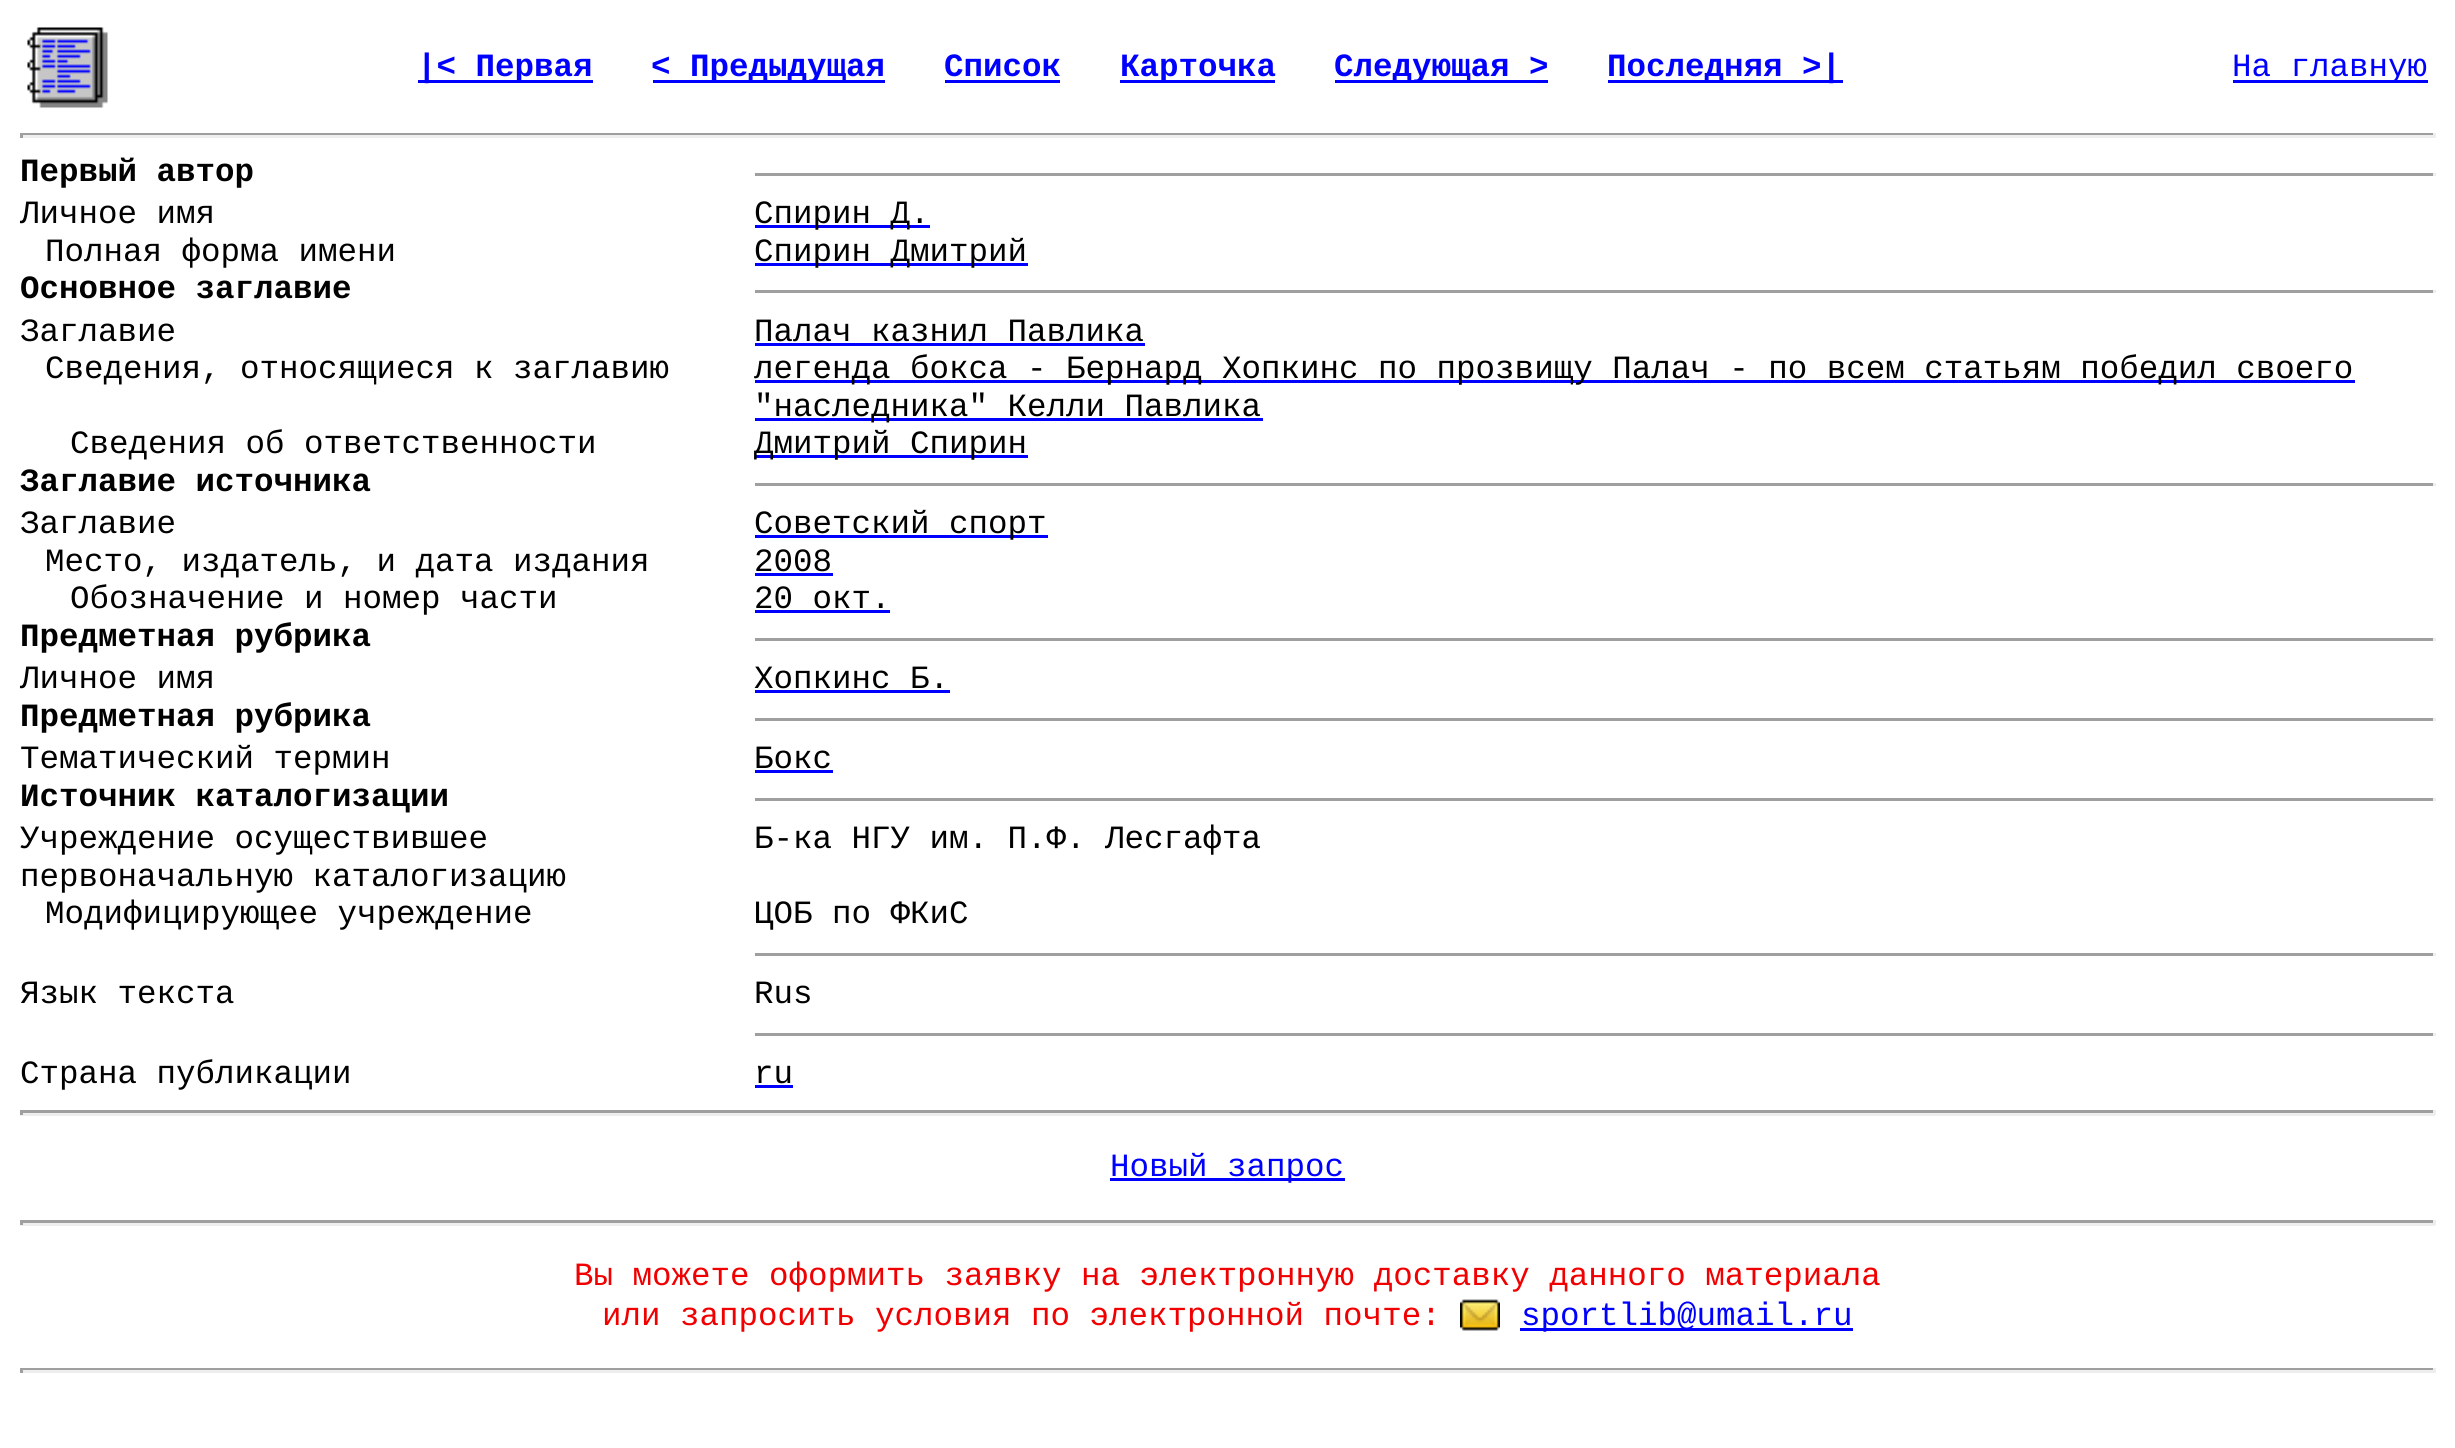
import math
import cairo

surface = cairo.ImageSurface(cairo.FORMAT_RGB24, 2455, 1448)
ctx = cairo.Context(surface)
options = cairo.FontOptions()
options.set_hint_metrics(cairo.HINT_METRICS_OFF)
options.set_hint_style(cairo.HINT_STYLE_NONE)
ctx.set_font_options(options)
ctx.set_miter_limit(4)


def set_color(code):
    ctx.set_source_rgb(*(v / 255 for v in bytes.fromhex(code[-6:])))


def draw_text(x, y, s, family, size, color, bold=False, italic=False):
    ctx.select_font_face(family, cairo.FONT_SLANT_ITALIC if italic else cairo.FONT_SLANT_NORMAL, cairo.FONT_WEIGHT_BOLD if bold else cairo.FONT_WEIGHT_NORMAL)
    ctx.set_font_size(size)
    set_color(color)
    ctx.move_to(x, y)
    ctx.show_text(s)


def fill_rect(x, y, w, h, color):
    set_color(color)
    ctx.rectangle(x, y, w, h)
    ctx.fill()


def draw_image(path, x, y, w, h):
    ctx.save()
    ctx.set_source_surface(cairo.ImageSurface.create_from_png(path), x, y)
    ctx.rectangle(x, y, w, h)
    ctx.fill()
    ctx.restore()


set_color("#ffffff")
ctx.paint()
draw_image("assets/img1.png", 27, 27, 81, 81)
fill_rect(418, 80, 175, 3, "#0000ff")
draw_text(417, 76, "|< Первая", "Liberation Mono", 32.5, "#0000ff", bold=True)
fill_rect(653, 80, 232, 3, "#0000ff")
draw_text(651, 76, "< Предыдущая", "Liberation Mono", 32.5, "#0000ff", bold=True)
draw_text(944, 76, "Список", "Liberation Mono", 32.5, "#0000ff", bold=True)
fill_rect(945, 80, 115, 3, "#0000ff")
fill_rect(1120, 80, 155, 3, "#0000ff")
draw_text(1120, 76, "Карточка", "Liberation Mono", 32.5, "#0000ff", bold=True)
fill_rect(1335, 80, 213, 3, "#0000ff")
draw_text(1334, 76, "Следующая >", "Liberation Mono", 32.5, "#0000ff", bold=True)
fill_rect(1608, 80, 235, 3, "#0000ff")
draw_text(1607, 76, "Последняя >|", "Liberation Mono", 32.5, "#0000ff", bold=True)
fill_rect(2233, 80, 195, 3, "#0000ff")
draw_text(2232, 76, "На главную", "Liberation Mono", 32.5, "#0000ff")
fill_rect(20, 133, 2415, 2, "#9f9f9f")
fill_rect(2433, 133, 3, 5, "#eeeeee")
fill_rect(20, 135, 2415, 3, "#eeeeee")
fill_rect(20, 133, 3, 5, "#9f9f9f")
draw_text(20, 181, "Первый автор", "Liberation Mono", 32.5, "#000000", bold=True)
fill_rect(755, 173, 1680, 3, "#9f9f9f")
fill_rect(2433, 173, 3, 3, "#eeeeee")
draw_text(20, 223, "Личное имя", "Liberation Mono", 32.5, "#000000")
fill_rect(755, 225, 175, 3, "#0000ff")
draw_text(754, 223, "Спирин Д.", "Liberation Mono", 32.5, "#000000")
draw_text(45, 261, "Полная форма имени", "Liberation Mono", 32.5, "#000000")
fill_rect(755, 263, 273, 3, "#0000ff")
draw_text(754, 261, "Спирин Дмитрий", "Liberation Mono", 32.5, "#000000")
draw_text(20, 298, "Основное заглавие", "Liberation Mono", 32.5, "#000000", bold=True)
fill_rect(755, 290, 1680, 3, "#9f9f9f")
fill_rect(2433, 290, 3, 3, "#eeeeee")
draw_text(20, 341, "Заглавие", "Liberation Mono", 32.5, "#000000")
draw_text(754, 341, "Палач казнил Павлика", "Liberation Mono", 32.5, "#000000")
fill_rect(755, 343, 390, 3, "#0000ff")
draw_text(45, 378, "Сведения, относящиеся к заглавию", "Liberation Mono", 32.5, "#000000")
fill_rect(755, 380, 1600, 3, "#0000ff")
draw_text(754, 378, "легенда бокса - Бернард Хопкинс по прозвищу Палач - по всем статьям победил своего", "Liberation Mono", 32.5, "#000000")
fill_rect(755, 418, 508, 3, "#0000ff")
draw_text(754, 416, "\"наследника\" Келли Павлика", "Liberation Mono", 32.5, "#000000")
draw_text(70, 453, "Сведения об ответственности", "Liberation Mono", 32.5, "#000000")
fill_rect(755, 455, 273, 3, "#0000ff")
draw_text(754, 453, "Дмитрий Спирин", "Liberation Mono", 32.5, "#000000")
draw_text(20, 491, "Заглавие источника", "Liberation Mono", 32.5, "#000000", bold=True)
fill_rect(755, 483, 1680, 3, "#9f9f9f")
fill_rect(2433, 483, 3, 3, "#eeeeee")
draw_text(20, 533, "Заглавие", "Liberation Mono", 32.5, "#000000")
fill_rect(755, 535, 293, 3, "#0000ff")
draw_text(754, 533, "Советский спорт", "Liberation Mono", 32.5, "#000000")
draw_text(45, 571, "Место, издатель, и дата издания", "Liberation Mono", 32.5, "#000000")
draw_text(754, 571, "2008", "Liberation Mono", 32.5, "#000000")
fill_rect(755, 573, 78, 3, "#0000ff")
draw_text(70, 608, "Обозначение и номер части", "Liberation Mono", 32.5, "#000000")
draw_text(754, 608, "20 окт.", "Liberation Mono", 32.5, "#000000")
fill_rect(755, 610, 135, 3, "#0000ff")
draw_text(20, 646, "Предметная рубрика", "Liberation Mono", 32.5, "#000000", bold=True)
fill_rect(755, 638, 1680, 3, "#9f9f9f")
fill_rect(2433, 638, 3, 3, "#eeeeee")
draw_text(20, 688, "Личное имя", "Liberation Mono", 32.5, "#000000")
draw_text(754, 688, "Хопкинс Б.", "Liberation Mono", 32.5, "#000000")
fill_rect(755, 690, 195, 3, "#0000ff")
draw_text(20, 726, "Предметная рубрика", "Liberation Mono", 32.5, "#000000", bold=True)
fill_rect(755, 718, 1680, 3, "#9f9f9f")
fill_rect(2433, 718, 3, 3, "#eeeeee")
draw_text(20, 768, "Тематический термин", "Liberation Mono", 32.5, "#000000")
draw_text(754, 768, "Бокс", "Liberation Mono", 32.5, "#000000")
fill_rect(755, 770, 78, 3, "#0000ff")
draw_text(20, 806, "Источник каталогизации", "Liberation Mono", 32.5, "#000000", bold=True)
fill_rect(755, 798, 1680, 3, "#9f9f9f")
fill_rect(2433, 798, 3, 3, "#eeeeee")
draw_text(20, 848, "Учреждение осуществившее", "Liberation Mono", 32.5, "#000000")
draw_text(20, 886, "первоначальную каталогизацию", "Liberation Mono", 32.5, "#000000")
draw_text(754, 848, "Б-ка НГУ им. П.Ф. Лесгафта", "Liberation Mono", 32.5, "#000000")
draw_text(45, 923, "Модифицирующее учреждение", "Liberation Mono", 32.5, "#000000")
draw_text(754, 923, "ЦОБ по ФКиС", "Liberation Mono", 32.5, "#000000")
fill_rect(755, 953, 1680, 3, "#9f9f9f")
fill_rect(2433, 953, 3, 3, "#eeeeee")
draw_text(20, 1003, "Язык текста", "Liberation Mono", 32.5, "#000000")
draw_text(754, 1003, "Rus", "Liberation Mono", 32.5, "#000000")
fill_rect(755, 1033, 1680, 3, "#9f9f9f")
fill_rect(2433, 1033, 3, 3, "#eeeeee")
draw_text(20, 1083, "Страна публикации", "Liberation Mono", 32.5, "#000000")
draw_text(754, 1083, "ru", "Liberation Mono", 32.5, "#000000")
fill_rect(755, 1085, 38, 3, "#0000ff")
fill_rect(20, 1110, 2415, 3, "#9f9f9f")
fill_rect(2433, 1110, 3, 5, "#eeeeee")
fill_rect(20, 1113, 2415, 3, "#eeeeee")
fill_rect(20, 1110, 3, 5, "#9f9f9f")
fill_rect(1110, 1178, 235, 3, "#0000ff")
draw_text(1110, 1176, "Новый запрос", "Liberation Mono", 32.5, "#0000ff")
fill_rect(20, 1220, 2415, 3, "#9f9f9f")
fill_rect(2433, 1220, 3, 5, "#eeeeee")
fill_rect(20, 1223, 2415, 3, "#eeeeee")
fill_rect(20, 1220, 3, 5, "#9f9f9f")
draw_text(574, 1285, "Вы можете оформить заявку на электронную доставку данного материала", "Liberation Mono", 32.5, "#f00000")
draw_text(602, 1325, "или запросить условия по электронной почте:", "Liberation Mono", 32.5, "#f00000")
draw_image("assets/img2.png", 1460, 1299, 40, 32)
fill_rect(1520, 1328, 333, 3, "#0000ff")
draw_text(1521, 1325, "sportlib@umail.ru", "Liberation Mono", 32.5, "#0000ff")
fill_rect(20, 1368, 2415, 2, "#9f9f9f")
fill_rect(2433, 1368, 3, 5, "#eeeeee")
fill_rect(20, 1370, 2415, 3, "#eeeeee")
fill_rect(20, 1368, 3, 5, "#9f9f9f")
surface.write_to_png("output.png")
